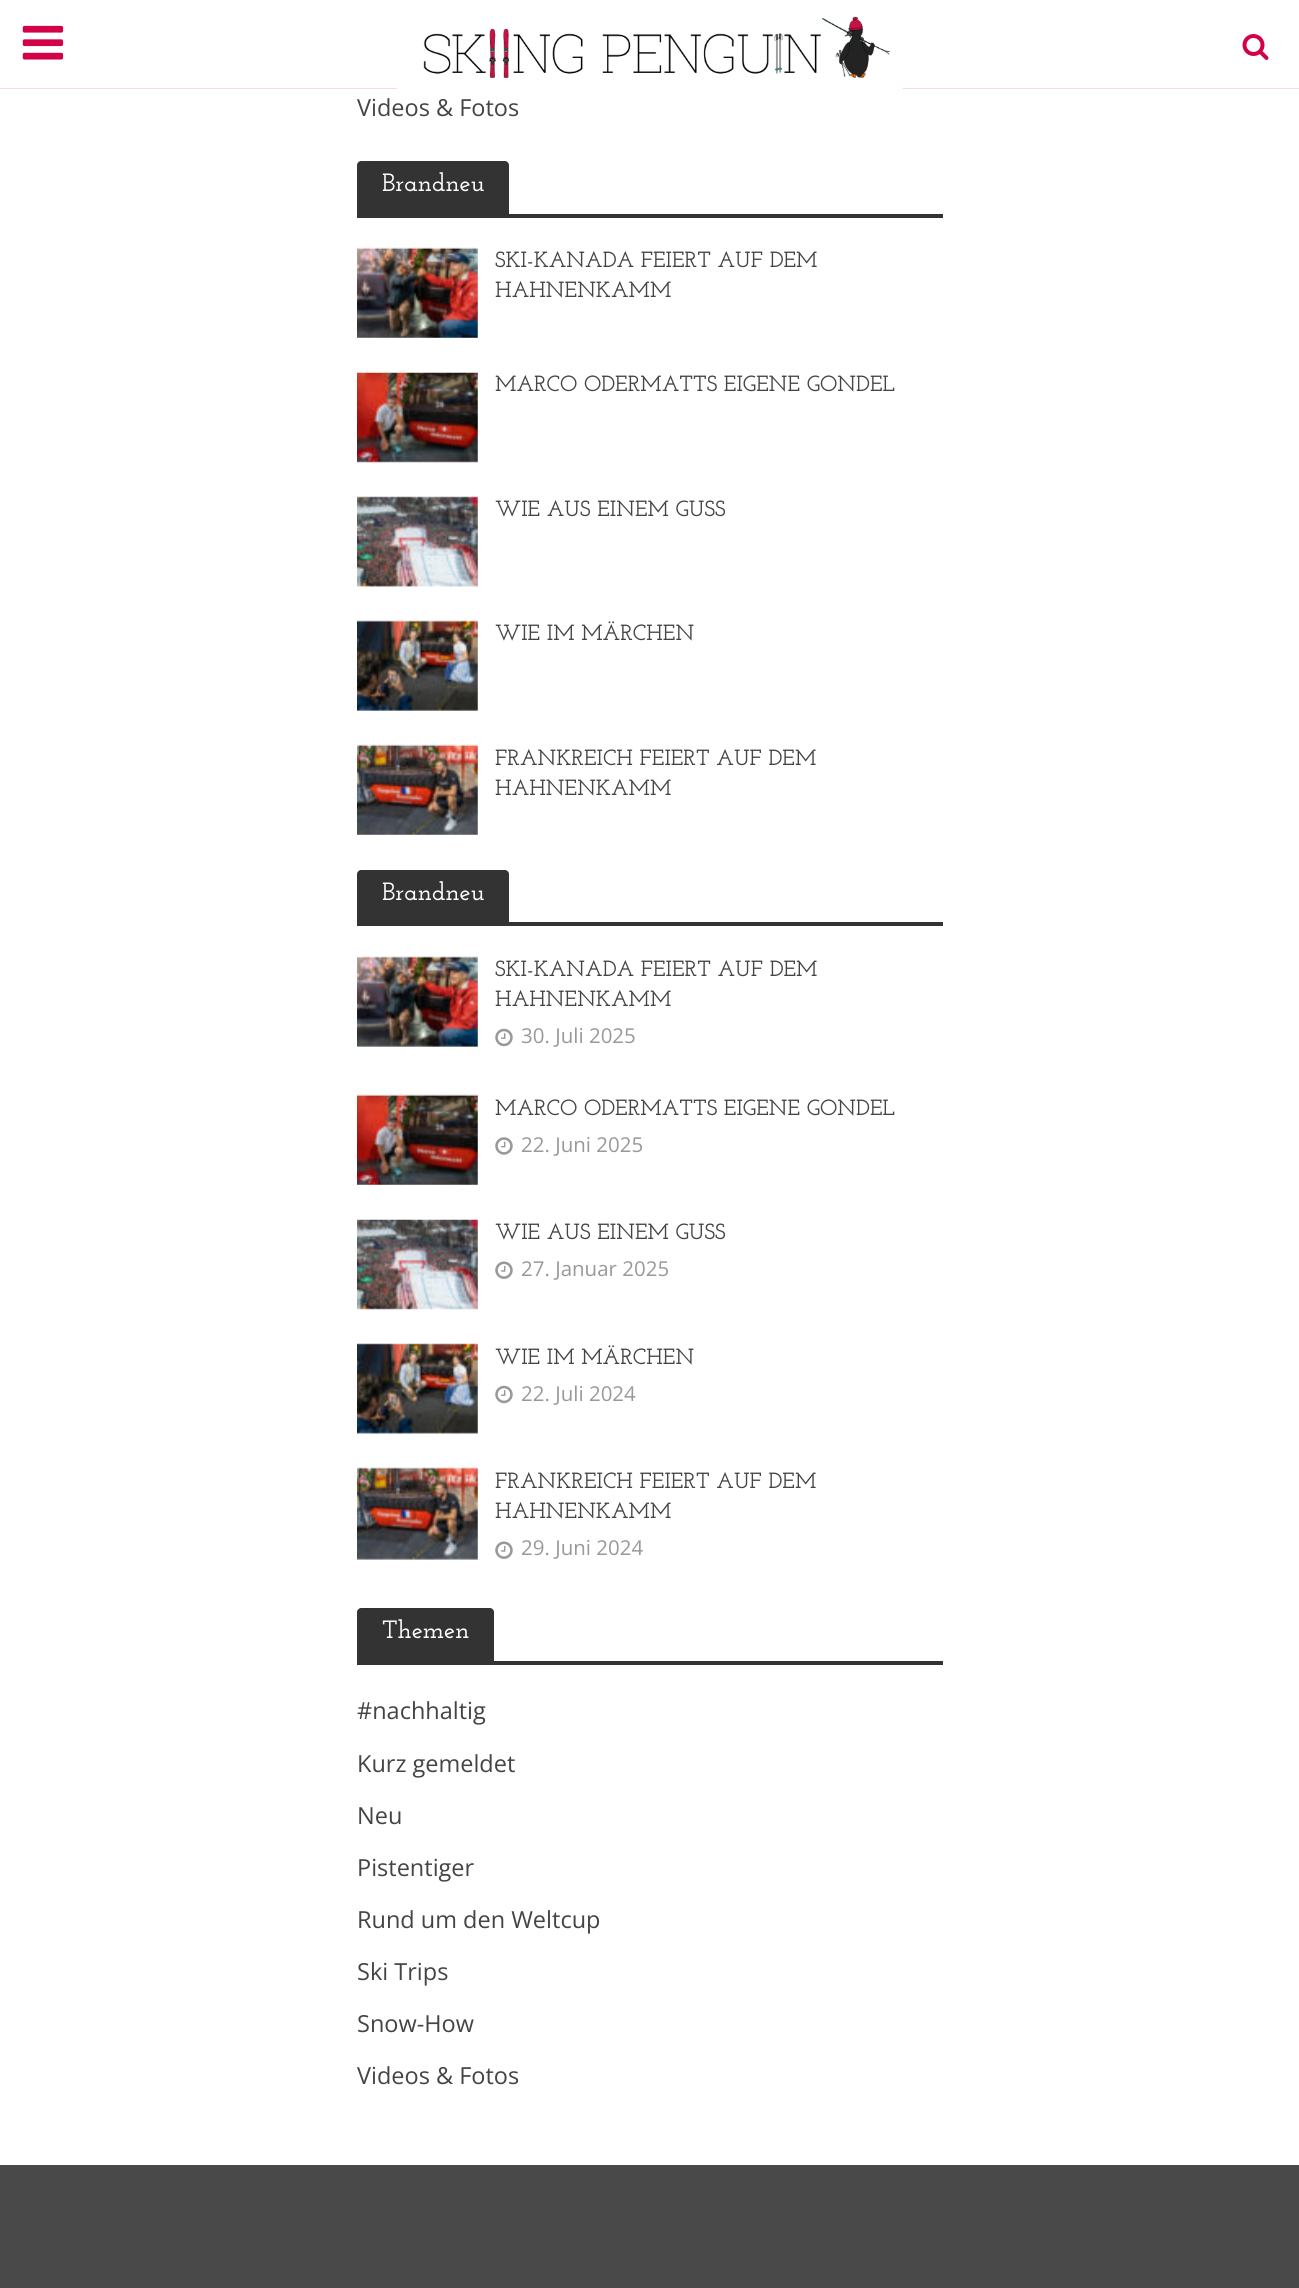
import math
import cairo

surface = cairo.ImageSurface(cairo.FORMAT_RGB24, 1299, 2288)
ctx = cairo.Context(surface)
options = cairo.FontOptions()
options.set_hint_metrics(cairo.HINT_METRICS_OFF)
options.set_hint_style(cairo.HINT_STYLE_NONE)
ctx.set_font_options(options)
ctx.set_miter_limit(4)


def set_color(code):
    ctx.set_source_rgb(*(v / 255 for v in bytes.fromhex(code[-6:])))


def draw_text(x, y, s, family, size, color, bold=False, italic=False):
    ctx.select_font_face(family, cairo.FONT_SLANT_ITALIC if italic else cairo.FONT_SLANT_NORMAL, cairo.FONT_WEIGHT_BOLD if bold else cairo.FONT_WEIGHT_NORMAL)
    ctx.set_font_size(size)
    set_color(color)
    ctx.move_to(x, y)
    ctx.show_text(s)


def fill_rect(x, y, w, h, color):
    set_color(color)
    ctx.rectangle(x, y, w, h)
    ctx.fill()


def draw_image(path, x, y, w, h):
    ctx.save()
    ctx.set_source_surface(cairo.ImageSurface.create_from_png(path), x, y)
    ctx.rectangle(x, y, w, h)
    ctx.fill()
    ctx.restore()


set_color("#ffffff")
ctx.paint()
set_color("#f8d9e3")
ctx.new_path()
ctx.move_to(0, -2)
ctx.line_to(0, 0)
ctx.line_to(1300, 0)
ctx.line_to(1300, 88)
ctx.line_to(0, 88)
ctx.line_to(0, 89)
ctx.line_to(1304, 89)
ctx.line_to(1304, -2)
ctx.close_path()
ctx.fill()
draw_image("assets/img1.png", 22, 25, 42, 35)
draw_image("assets/img2.png", 397, 16, 506, 73)
draw_image("assets/img3.png", 1242, 34, 27, 26)
draw_text(357, 116, "Videos & Fotos", "Open Sans", 23.5, "#444444")
set_color("#333333")
ctx.new_path()
ctx.move_to(361, 161)
ctx.line_to(505, 161)
ctx.curve_to(507, 161, 509, 163, 509, 165)
ctx.line_to(509, 214)
ctx.line_to(357, 214)
ctx.line_to(357, 165)
ctx.curve_to(357, 163, 359, 161, 361, 161)
ctx.close_path()
ctx.fill()
draw_text(382, 191, "Brandneu", "Josefin Slab SemiBold", 25, "#ffffff")
fill_rect(357, 214, 586, 4, "#333333")
fill_rect(357, 249, 121, 89, "#f2f2f2")
draw_image("assets/img4.png", 357, 247, 121, 91)
draw_text(495, 267, "SKI-KANADA FEIERT AUF DEM", "Josefin Slab SemiBold", 22, "#444444")
draw_text(495, 297, "HAHNENKAMM", "Josefin Slab SemiBold", 22, "#444444")
fill_rect(357, 373, 121, 89, "#f2f2f2")
draw_image("assets/img5.png", 357, 372, 121, 91)
draw_text(495, 391, "MARCO ODERMATTS EIGENE GONDEL", "Josefin Slab SemiBold", 22, "#444444")
fill_rect(357, 497, 121, 89, "#f2f2f2")
draw_image("assets/img6.png", 357, 496, 121, 91)
draw_text(495, 516, "WIE AUS EINEM GUSS", "Josefin Slab SemiBold", 22, "#444444")
fill_rect(357, 621, 121, 90, "#f2f2f2")
draw_image("assets/img7.png", 357, 620, 121, 91)
draw_text(495, 640, "WIE IM MÄRCHEN", "Josefin Slab SemiBold", 22, "#444444")
fill_rect(357, 746, 121, 89, "#f2f2f2")
draw_image("assets/img8.png", 357, 744, 121, 91)
draw_text(495, 765, "FRANKREICH FEIERT AUF DEM", "Josefin Slab SemiBold", 22, "#444444")
draw_text(495, 795, "HAHNENKAMM", "Josefin Slab SemiBold", 22, "#444444")
set_color("#333333")
ctx.new_path()
ctx.move_to(361, 870)
ctx.line_to(505, 870)
ctx.curve_to(507, 870, 509, 872, 509, 874)
ctx.line_to(509, 922)
ctx.line_to(357, 922)
ctx.line_to(357, 874)
ctx.curve_to(357, 872, 359, 870, 361, 870)
ctx.close_path()
ctx.fill()
draw_text(382, 900, "Brandneu", "Josefin Slab SemiBold", 25, "#ffffff")
fill_rect(357, 922, 586, 4, "#333333")
fill_rect(357, 957, 121, 90, "#f2f2f2")
draw_image("assets/img9.png", 357, 956, 121, 91)
draw_text(495, 976, "SKI-KANADA FEIERT AUF DEM", "Josefin Slab SemiBold", 22, "#444444")
draw_text(495, 1006, "HAHNENKAMM", "Josefin Slab SemiBold", 22, "#444444")
draw_image("assets/img10.png", 495, 1028, 18, 19)
draw_text(521, 1043, "30. Juli 2025", "Open Sans", 20.5, "#999999")
fill_rect(357, 1096, 121, 89, "#f2f2f2")
draw_image("assets/img11.png", 357, 1094, 121, 91)
draw_text(495, 1115, "MARCO ODERMATTS EIGENE GONDEL", "Josefin Slab SemiBold", 22, "#444444")
draw_image("assets/img12.png", 495, 1137, 18, 18)
draw_text(521, 1152, "22. Juni 2025", "Open Sans", 20.5, "#999999")
fill_rect(357, 1220, 121, 89, "#f2f2f2")
draw_image("assets/img13.png", 357, 1219, 121, 91)
draw_text(495, 1239, "WIE AUS EINEM GUSS", "Josefin Slab SemiBold", 22, "#444444")
draw_image("assets/img14.png", 495, 1261, 18, 18)
draw_text(521, 1276, "27. Januar 2025", "Open Sans", 20.5, "#999999")
fill_rect(357, 1344, 121, 89, "#f2f2f2")
draw_image("assets/img15.png", 357, 1343, 121, 91)
draw_text(495, 1364, "WIE IM MÄRCHEN", "Josefin Slab SemiBold", 22, "#444444")
draw_image("assets/img10.png", 495, 1385, 18, 19)
draw_text(521, 1401, "22. Juli 2024", "Open Sans", 20.5, "#999999")
fill_rect(357, 1468, 121, 91, "#f2f2f2")
draw_image("assets/img16.png", 357, 1467, 121, 93)
draw_text(495, 1488, "FRANKREICH FEIERT AUF DEM", "Josefin Slab SemiBold", 22, "#444444")
draw_text(495, 1518, "HAHNENKAMM", "Josefin Slab SemiBold", 22, "#444444")
draw_image("assets/img14.png", 495, 1541, 18, 18)
draw_text(521, 1555, "29. Juni 2024", "Open Sans", 20.5, "#999999")
set_color("#333333")
ctx.new_path()
ctx.move_to(361, 1608)
ctx.line_to(490, 1608)
ctx.curve_to(492, 1608, 494, 1610, 494, 1612)
ctx.line_to(494, 1661)
ctx.line_to(357, 1661)
ctx.line_to(357, 1612)
ctx.curve_to(357, 1610, 359, 1608, 361, 1608)
ctx.close_path()
ctx.fill()
draw_text(382, 1638, "Themen", "Josefin Slab SemiBold", 25, "#ffffff")
fill_rect(357, 1661, 586, 4, "#333333")
draw_text(357, 1719, "#nachhaltig", "Open Sans", 23.5, "#444444")
draw_text(357, 1772, "Kurz gemeldet", "Open Sans", 23.5, "#444444")
draw_text(357, 1824, "Neu", "Open Sans", 23.5, "#444444")
draw_text(357, 1876, "Pistentiger", "Open Sans", 23.5, "#444444")
draw_text(357, 1928, "Rund um den Weltcup", "Open Sans", 23.5, "#444444")
draw_text(357, 1980, "Ski Trips", "Open Sans", 23.5, "#444444")
draw_text(357, 2032, "Snow-How", "Open Sans", 23.5, "#444444")
draw_text(357, 2084, "Videos & Fotos", "Open Sans", 23.5, "#444444")
fill_rect(0, 2165, 1299, 123, "#494949")
surface.write_to_png("output.png")
